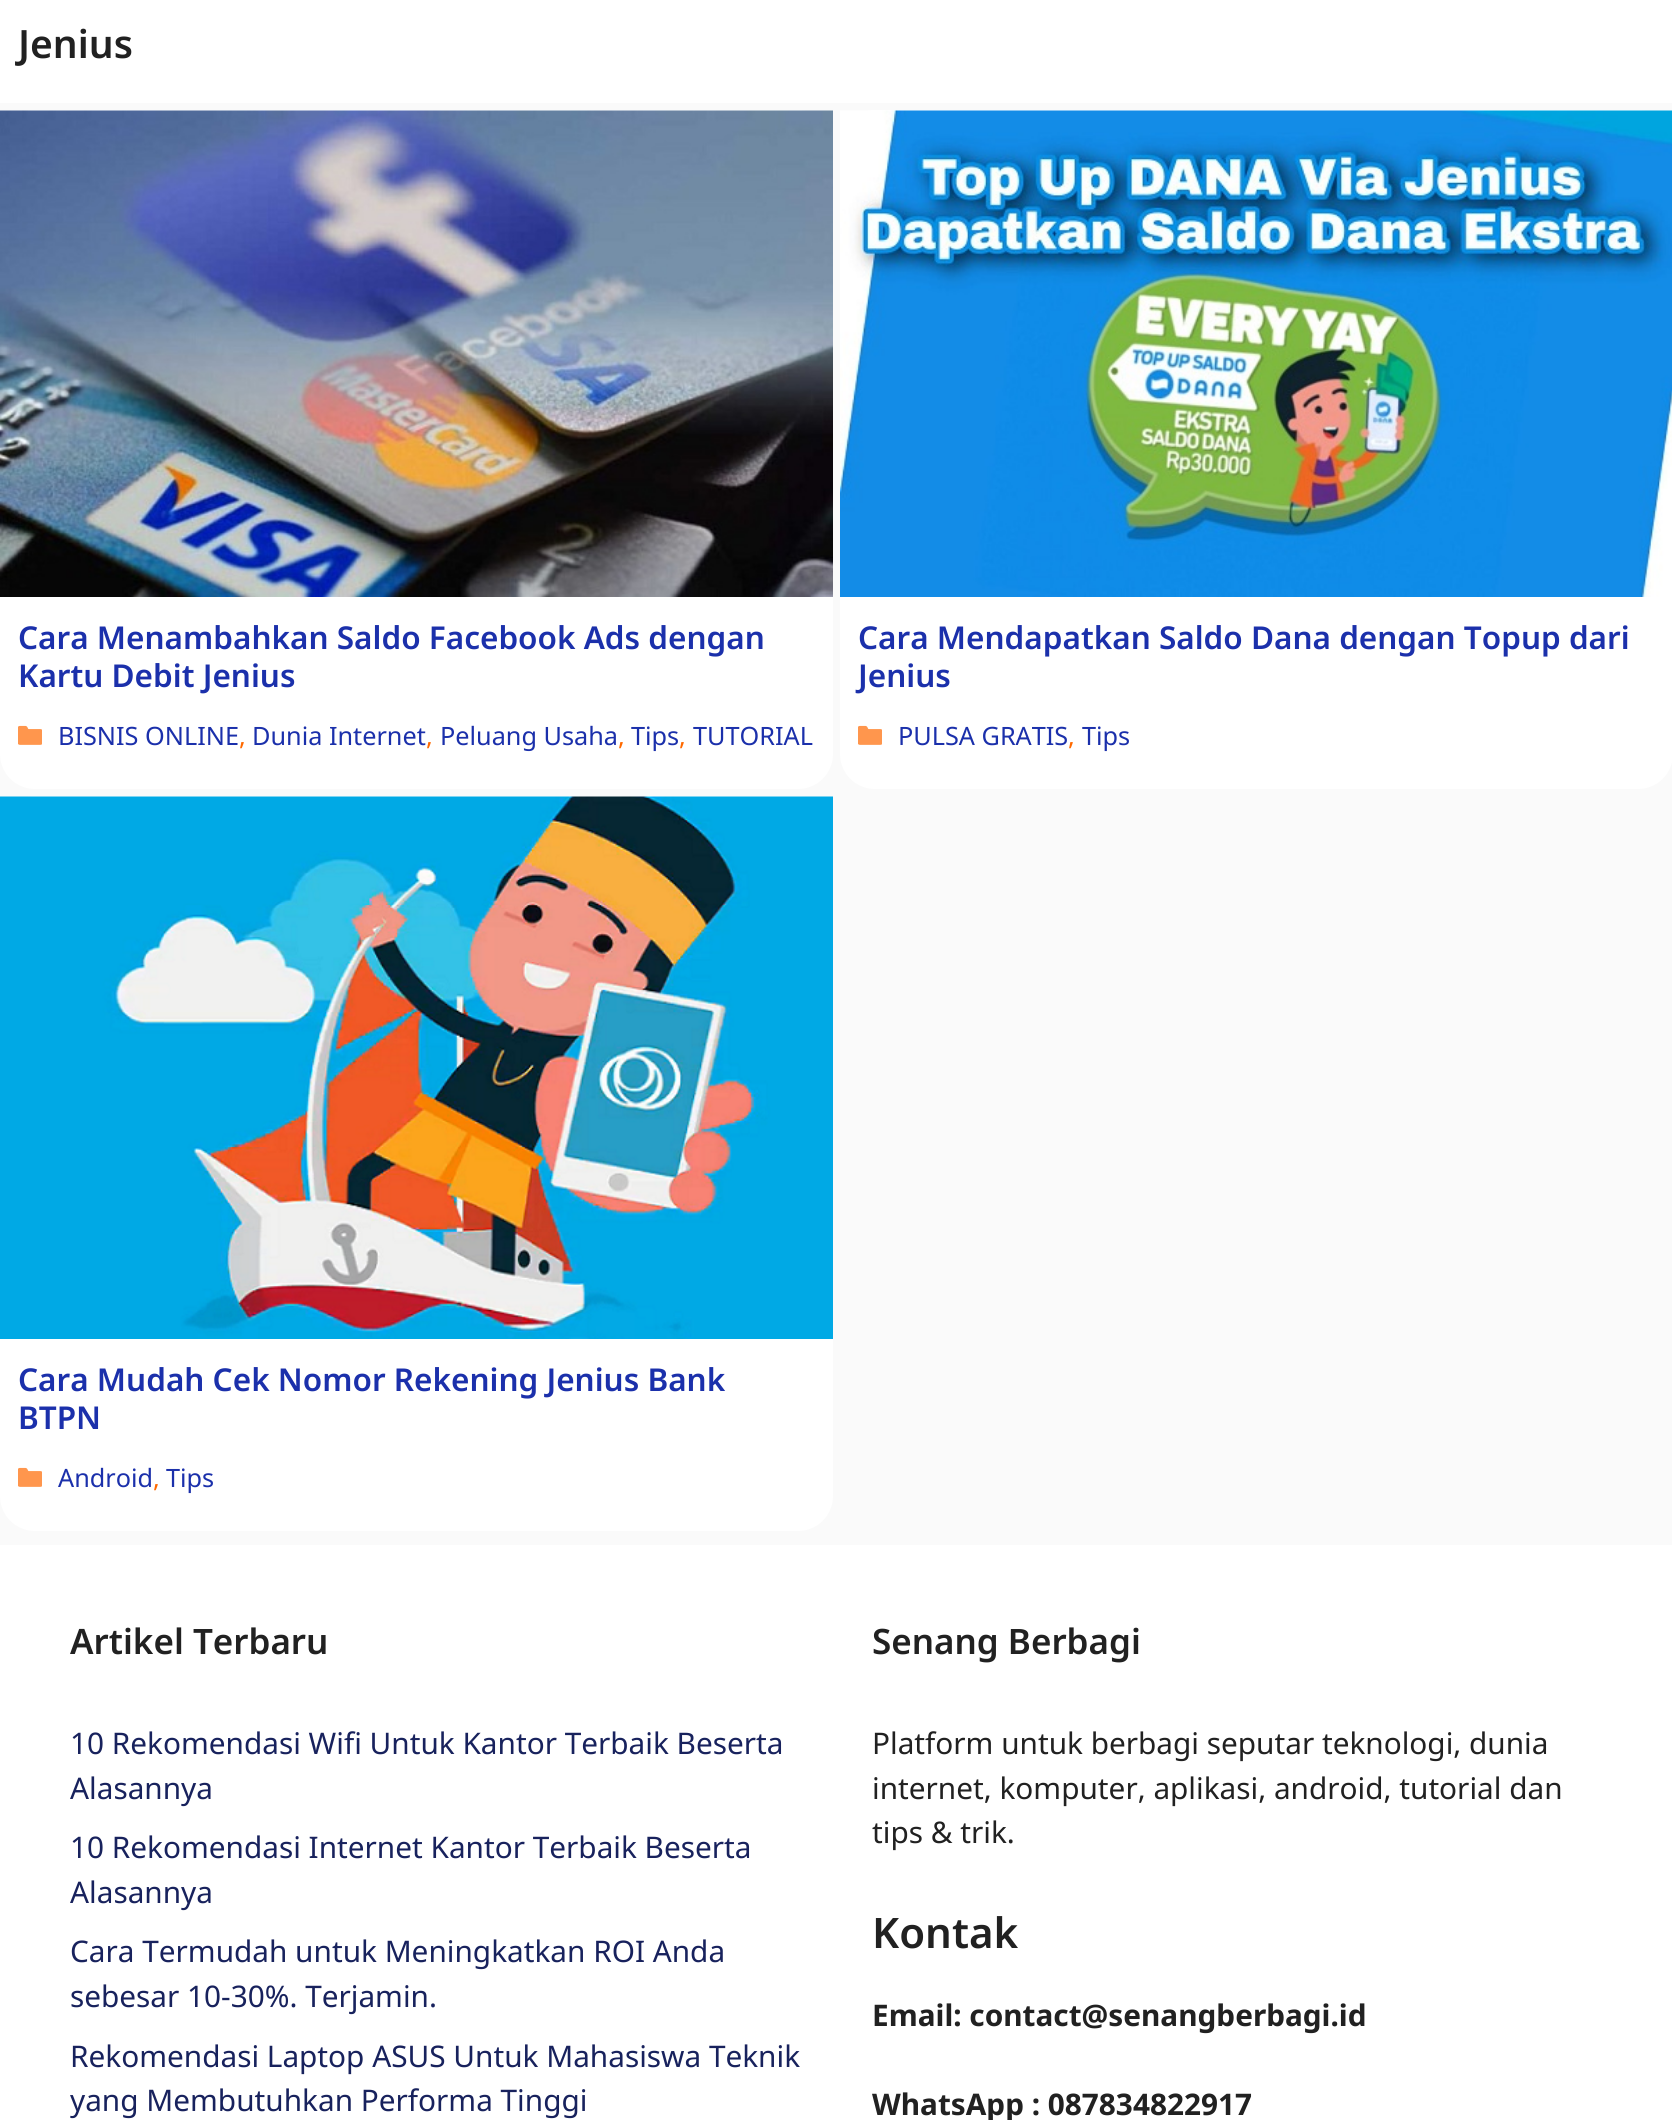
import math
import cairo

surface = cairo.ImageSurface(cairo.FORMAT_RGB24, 1672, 2120)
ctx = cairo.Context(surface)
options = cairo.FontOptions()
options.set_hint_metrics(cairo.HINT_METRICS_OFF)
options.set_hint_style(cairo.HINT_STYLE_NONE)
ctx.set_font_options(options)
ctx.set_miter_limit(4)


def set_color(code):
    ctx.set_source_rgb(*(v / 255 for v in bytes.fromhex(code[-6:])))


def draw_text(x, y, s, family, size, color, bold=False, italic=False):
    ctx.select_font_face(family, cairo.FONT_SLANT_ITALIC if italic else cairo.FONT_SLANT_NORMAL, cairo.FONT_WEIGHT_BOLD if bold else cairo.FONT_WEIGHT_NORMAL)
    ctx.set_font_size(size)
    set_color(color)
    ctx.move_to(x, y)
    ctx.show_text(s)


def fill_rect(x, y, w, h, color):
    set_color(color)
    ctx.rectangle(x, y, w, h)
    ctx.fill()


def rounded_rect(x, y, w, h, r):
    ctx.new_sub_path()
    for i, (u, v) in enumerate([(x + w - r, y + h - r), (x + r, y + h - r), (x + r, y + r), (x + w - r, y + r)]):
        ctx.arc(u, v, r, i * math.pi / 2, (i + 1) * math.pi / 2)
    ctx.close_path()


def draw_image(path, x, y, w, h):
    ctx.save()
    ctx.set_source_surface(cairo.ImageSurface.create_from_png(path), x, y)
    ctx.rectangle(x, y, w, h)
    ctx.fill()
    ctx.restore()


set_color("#fafafa")
ctx.paint()
fill_rect(0, 0, 1672, 103, "#ffffff")
draw_text(18, 58, "Jenius", "Noto Sans SemiBold", 39, "#212121")
set_color("#ffffff")
rounded_rect(0, 110, 833, 679, 35)
ctx.fill()
draw_image("assets/img1.png", 0, 110, 833, 487)
draw_text(18, 649, "Cara Menambahkan Saldo Facebook Ads dengan", "Noto Sans SemiBold", 31.5, "#1b30ab")
draw_text(18, 687, "Kartu Debit Jenius", "Noto Sans SemiBold", 31.5, "#1b30ab")
draw_image("assets/img2.png", 18, 725, 24, 20)
draw_text(58, 745, "BISNIS ONLINE", "Noto Sans", 25.25, "#1b30ab")
draw_text(239, 745, ",", "Noto Sans", 25.25, "#ff6900")
draw_text(252, 745, "Dunia Internet", "Noto Sans", 25.25, "#1b30ab")
draw_text(426, 745, ",", "Noto Sans", 25.25, "#ff6900")
draw_text(440, 745, "Peluang Usaha", "Noto Sans", 25.25, "#1b30ab")
draw_text(618, 745, ",", "Noto Sans", 25.25, "#ff6900")
draw_text(631, 745, "Tips", "Noto Sans", 25.25, "#1b30ab")
draw_text(679, 745, ",", "Noto Sans", 25.25, "#ff6900")
draw_text(693, 745, "TUTORIAL", "Noto Sans", 25.25, "#1b30ab")
set_color("#ffffff")
rounded_rect(840, 110, 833, 679, 35)
ctx.fill()
draw_image("assets/img3.png", 840, 110, 832, 487)
draw_text(858, 649, "Cara Mendapatkan Saldo Dana dengan Topup dari", "Noto Sans SemiBold", 31.5, "#1b30ab")
draw_text(858, 687, "Jenius", "Noto Sans SemiBold", 31.5, "#1b30ab")
draw_image("assets/img2.png", 858, 725, 24, 20)
draw_text(898, 745, "PULSA GRATIS", "Noto Sans", 25.25, "#1b30ab")
draw_text(1068, 745, ",", "Noto Sans", 25.25, "#ff6900")
draw_text(1082, 745, "Tips", "Noto Sans", 25.25, "#1b30ab")
set_color("#ffffff")
rounded_rect(0, 796, 833, 735, 35)
ctx.fill()
draw_image("assets/img4.png", 0, 796, 833, 543)
draw_text(18, 1391, "Cara Mudah Cek Nomor Rekening Jenius Bank", "Noto Sans SemiBold", 31.5, "#1b30ab")
draw_text(18, 1429, "BTPN", "Noto Sans SemiBold", 31.5, "#1b30ab")
draw_image("assets/img2.png", 18, 1467, 24, 20)
draw_text(58, 1487, "Android", "Noto Sans", 25.25, "#1b30ab")
draw_text(153, 1487, ",", "Noto Sans", 25.25, "#ff6900")
draw_text(166, 1487, "Tips", "Noto Sans", 25.25, "#1b30ab")
fill_rect(0, 1545, 1672, 575, "#ffffff")
draw_text(70, 1654, "Artikel Terbaru", "Noto Sans SemiBold", 35, "#212121")
draw_text(70, 1754, "10 Rekomendasi Wifi Untuk Kantor Terbaik Beserta", "Noto Sans", 29.75, "#18225d")
draw_text(70, 1799, "Alasannya", "Noto Sans", 29.75, "#18225d")
draw_text(70, 1858, "10 Rekomendasi Internet Kantor Terbaik Beserta", "Noto Sans", 29.75, "#18225d")
draw_text(70, 1903, "Alasannya", "Noto Sans", 29.75, "#18225d")
draw_text(70, 1962, "Cara Termudah untuk Meningkatkan ROI Anda", "Noto Sans", 29.75, "#18225d")
draw_text(70, 2007, "sebesar 10-30%. Terjamin.", "Noto Sans", 29.75, "#18225d")
draw_text(70, 2067, "Rekomendasi Laptop ASUS Untuk Mahasiswa Teknik", "Noto Sans", 29.75, "#18225d")
draw_text(70, 2111, "yang Membutuhkan Performa Tinggi", "Noto Sans", 29.75, "#18225d")
draw_text(872, 1654, "Senang Berbagi", "Noto Sans SemiBold", 35, "#212121")
draw_text(872, 1754, "Platform untuk berbagi seputar teknologi, dunia", "Noto Sans", 29.75, "#212121")
draw_text(872, 1799, "internet, komputer, aplikasi, android, tutorial dan", "Noto Sans", 29.75, "#212121")
draw_text(872, 1843, "tips & trik.", "Noto Sans", 29.75, "#212121")
draw_text(872, 1948, "Kontak", "Noto Sans SemiBold", 42, "#212121")
draw_text(872, 2026, "Email: contact@senangberbagi.id", "Noto Sans", 29.75, "#212121", bold=True)
draw_text(872, 2115, "WhatsApp : 087834822917", "Noto Sans", 29.75, "#212121", bold=True)
surface.write_to_png("output.png")
